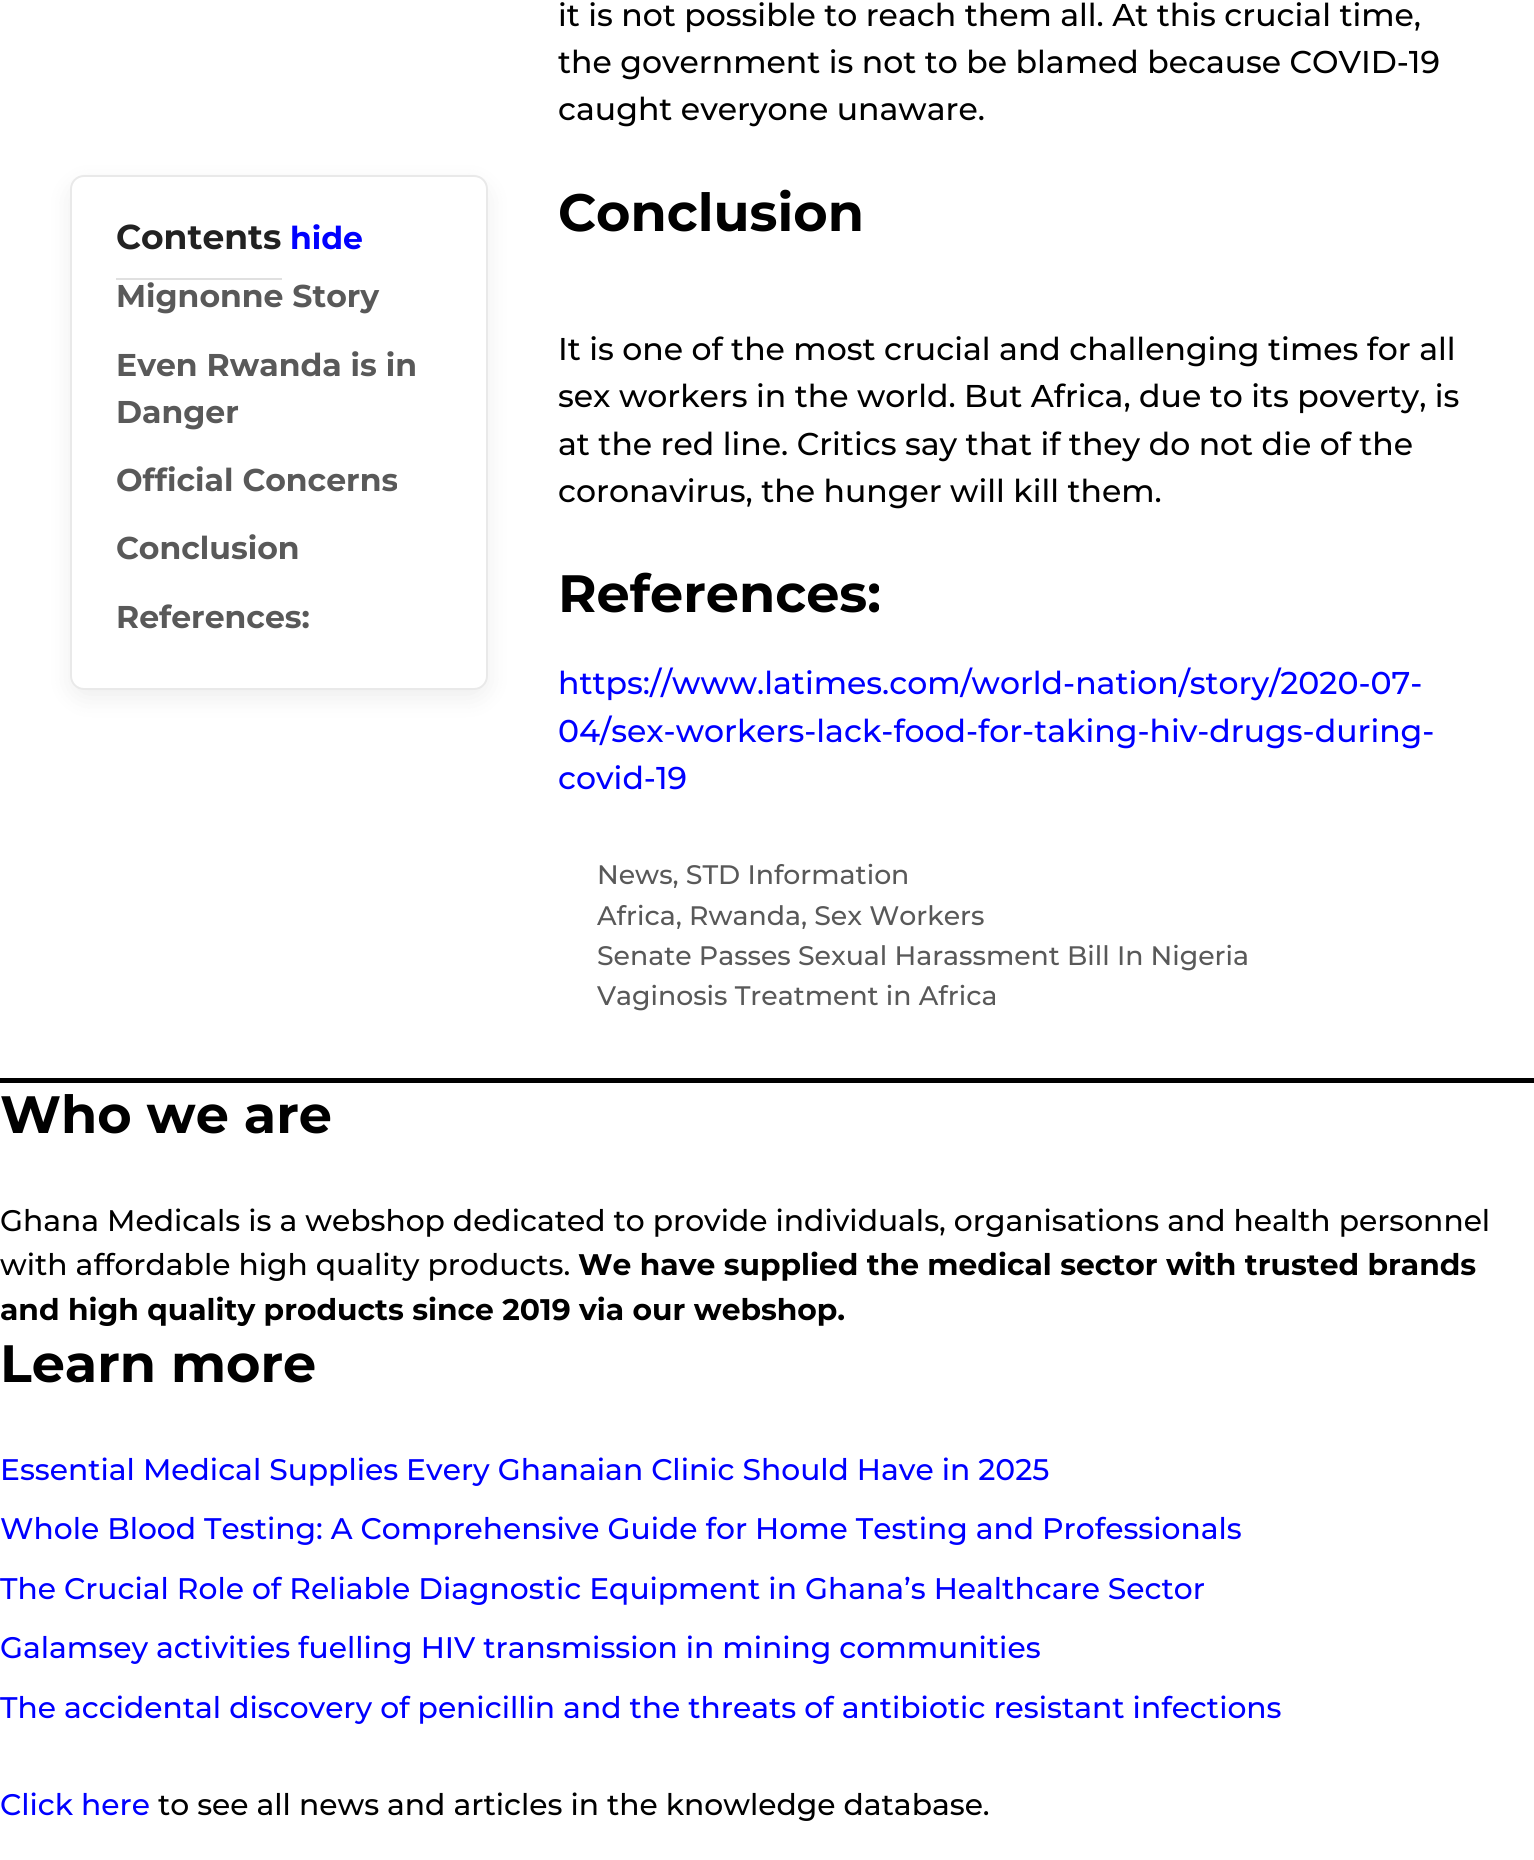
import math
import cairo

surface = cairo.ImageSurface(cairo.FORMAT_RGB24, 1534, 1860)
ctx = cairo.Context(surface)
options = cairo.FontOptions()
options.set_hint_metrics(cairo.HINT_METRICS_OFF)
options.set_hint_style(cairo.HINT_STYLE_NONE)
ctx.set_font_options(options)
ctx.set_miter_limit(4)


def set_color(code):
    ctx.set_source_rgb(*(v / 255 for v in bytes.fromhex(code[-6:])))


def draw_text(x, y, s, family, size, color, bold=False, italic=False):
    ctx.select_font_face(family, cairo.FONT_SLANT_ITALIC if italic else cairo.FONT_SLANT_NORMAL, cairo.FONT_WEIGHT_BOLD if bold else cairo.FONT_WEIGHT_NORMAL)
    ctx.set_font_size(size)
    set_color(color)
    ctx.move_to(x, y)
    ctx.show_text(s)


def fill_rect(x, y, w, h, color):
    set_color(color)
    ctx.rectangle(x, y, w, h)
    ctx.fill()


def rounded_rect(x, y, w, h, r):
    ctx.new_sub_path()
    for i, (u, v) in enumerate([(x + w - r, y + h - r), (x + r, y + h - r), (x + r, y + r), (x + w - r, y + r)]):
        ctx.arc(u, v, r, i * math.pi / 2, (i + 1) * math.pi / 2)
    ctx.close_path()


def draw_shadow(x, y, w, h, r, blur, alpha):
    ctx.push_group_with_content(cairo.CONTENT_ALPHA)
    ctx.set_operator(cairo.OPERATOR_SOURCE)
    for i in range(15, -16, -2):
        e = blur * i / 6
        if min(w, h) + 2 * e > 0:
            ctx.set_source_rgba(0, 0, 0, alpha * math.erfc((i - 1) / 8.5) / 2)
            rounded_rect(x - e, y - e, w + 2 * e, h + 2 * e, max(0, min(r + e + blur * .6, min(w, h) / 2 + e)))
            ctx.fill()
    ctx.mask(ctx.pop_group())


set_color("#ffffff")
ctx.paint()
set_color("#000000")
draw_shadow(70, 184, 418, 514, 14, 13, 0.07)
set_color("#ffffff")
rounded_rect(71, 176, 416, 513, 13)
ctx.fill_preserve()
set_color("#e9e9e9")
ctx.stroke()
draw_text(116, 249, "Contents", "Montserrat", 34.5, "#222222", bold=True)
fill_rect(116, 278, 166, 2, "#e0e0e0")
draw_text(290, 249, "hide", "Montserrat", 31.5, "#0000ff", bold=True)
draw_text(116, 307, "Mignonne Story", "Montserrat", 31.5, "#595959", bold=True)
draw_text(116, 376, "Even Rwanda is in", "Montserrat", 31.5, "#595959", bold=True)
draw_text(116, 423, "Danger", "Montserrat", 31.5, "#595959", bold=True)
draw_text(116, 491, "Official Concerns", "Montserrat", 31.5, "#595959", bold=True)
draw_text(116, 559, "Conclusion", "Montserrat", 31.5, "#595959", bold=True)
draw_text(116, 628, "References:", "Montserrat", 31.5, "#595959", bold=True)
draw_text(558, 26, "it is not possible to reach them all. At this crucial time,", "Montserrat Medium", 31.5, "#000000")
draw_text(558, 73, "the government is not to be blamed because COVID-19", "Montserrat Medium", 31.5, "#000000")
draw_text(558, 120, "caught everyone unaware.", "Montserrat Medium", 31.5, "#000000")
draw_text(558, 231, "Conclusion", "Montserrat", 52.5, "#000000", bold=True)
draw_text(558, 360, "It is one of the most crucial and challenging times for all", "Montserrat Medium", 31.5, "#000000")
draw_text(558, 407, "sex workers in the world. But Africa, due to its poverty, is", "Montserrat Medium", 31.5, "#000000")
draw_text(558, 455, "at the red line. Critics say that if they do not die of the", "Montserrat Medium", 31.5, "#000000")
draw_text(558, 502, "coronavirus, the hunger will kill them.", "Montserrat Medium", 31.5, "#000000")
draw_text(558, 612, "References:", "Montserrat", 52.5, "#000000", bold=True)
draw_text(558, 694, "https://www.latimes.com/world-nation/story/2020-07-", "Montserrat Medium", 31.5, "#0000ff")
draw_text(558, 742, "04/sex-workers-lack-food-for-taking-hiv-drugs-during-", "Montserrat Medium", 31.5, "#0000ff")
draw_text(558, 789, "covid-19", "Montserrat Medium", 31.5, "#0000ff")
draw_text(597, 884, "News, STD Information", "Montserrat Medium", 26.75, "#595959")
draw_text(597, 925, "Africa, Rwanda, Sex Workers", "Montserrat Medium", 26.75, "#595959")
draw_text(597, 965, "Senate Passes Sexual Harassment Bill In Nigeria", "Montserrat Medium", 26.75, "#595959")
draw_text(597, 1005, "Vaginosis Treatment in Africa", "Montserrat Medium", 26.75, "#595959")
fill_rect(0, 1078, 1534, 5, "#000000")
draw_text(0, 1133, "Who we are", "Montserrat", 52.5, "#000000", bold=True)
draw_text(0, 1231, "Ghana Medicals is a webshop dedicated to provide individuals, organisations and health personnel", "Montserrat Medium", 29.75, "#000000")
draw_text(0, 1275, "with affordable high quality products.", "Montserrat Medium", 29.75, "#000000")
draw_text(578, 1275, "We have supplied the medical sector with trusted brands", "Montserrat", 29.75, "#000000", bold=True)
draw_text(0, 1320, "and high quality products since 2019 via our webshop.", "Montserrat", 29.75, "#000000", bold=True)
draw_text(0, 1382, "Learn more", "Montserrat", 52.5, "#000000", bold=True)
draw_text(0, 1480, "Essential Medical Supplies Every Ghanaian Clinic Should Have in 2025", "Montserrat Medium", 29.75, "#0000ff")
draw_text(0, 1539, "Whole Blood Testing: A Comprehensive Guide for Home Testing and Professionals", "Montserrat Medium", 29.75, "#0000ff")
draw_text(0, 1599, "The Crucial Role of Reliable Diagnostic Equipment in Ghana’s Healthcare Sector", "Montserrat Medium", 29.75, "#0000ff")
draw_text(0, 1658, "Galamsey activities fuelling HIV transmission in mining communities", "Montserrat Medium", 29.75, "#0000ff")
draw_text(0, 1718, "The accidental discovery of penicillin and the threats of antibiotic resistant infections", "Montserrat Medium", 29.75, "#0000ff")
draw_text(0, 1815, "Click here", "Montserrat Medium", 29.75, "#0000ff")
draw_text(158, 1815, "to see all news and articles in the knowledge database.", "Montserrat Medium", 29.75, "#000000")
surface.write_to_png("output.png")
